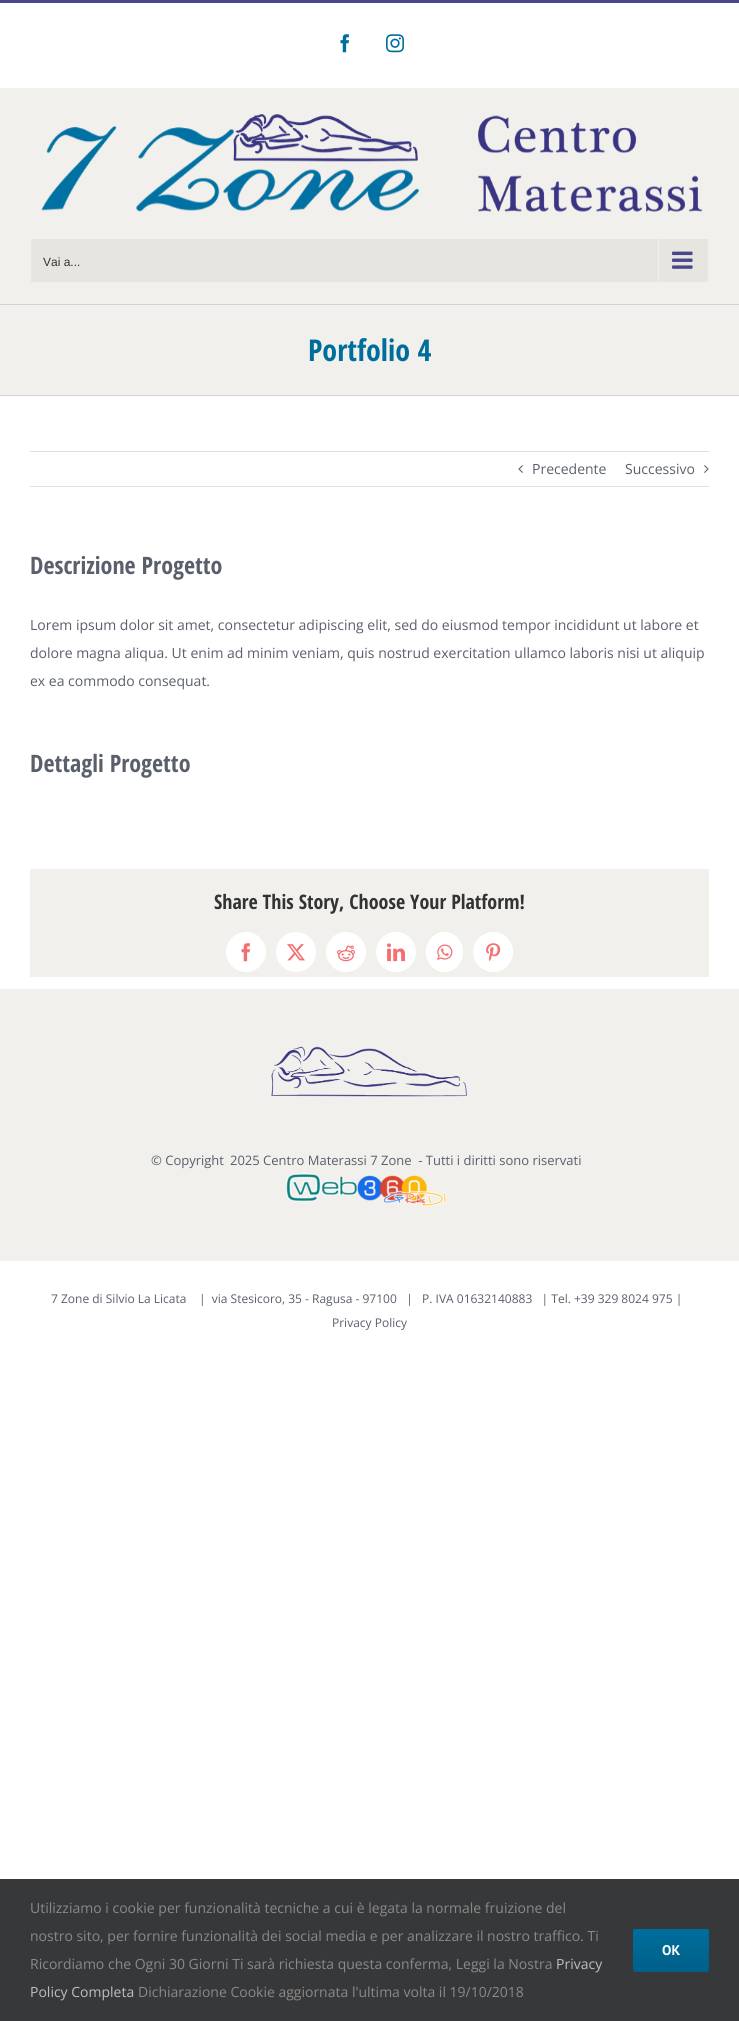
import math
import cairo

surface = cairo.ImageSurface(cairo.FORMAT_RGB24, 739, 2021)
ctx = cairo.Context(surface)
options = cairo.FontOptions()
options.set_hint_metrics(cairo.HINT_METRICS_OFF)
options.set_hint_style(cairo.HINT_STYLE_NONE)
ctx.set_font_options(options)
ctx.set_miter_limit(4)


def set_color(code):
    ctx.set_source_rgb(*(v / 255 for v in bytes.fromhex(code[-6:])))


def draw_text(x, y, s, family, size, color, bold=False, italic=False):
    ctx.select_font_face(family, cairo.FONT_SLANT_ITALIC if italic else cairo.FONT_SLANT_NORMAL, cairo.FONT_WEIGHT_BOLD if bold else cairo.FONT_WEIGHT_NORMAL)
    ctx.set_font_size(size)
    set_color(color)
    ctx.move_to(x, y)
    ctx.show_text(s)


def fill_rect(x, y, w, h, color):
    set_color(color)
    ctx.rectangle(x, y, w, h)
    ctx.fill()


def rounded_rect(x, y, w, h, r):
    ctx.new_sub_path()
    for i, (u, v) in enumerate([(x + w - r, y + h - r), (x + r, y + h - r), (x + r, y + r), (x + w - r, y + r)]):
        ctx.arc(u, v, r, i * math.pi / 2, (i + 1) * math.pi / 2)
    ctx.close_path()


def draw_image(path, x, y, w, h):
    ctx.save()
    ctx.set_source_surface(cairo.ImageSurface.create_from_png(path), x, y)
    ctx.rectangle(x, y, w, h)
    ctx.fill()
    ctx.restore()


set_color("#ffffff")
ctx.paint()
fill_rect(0, 0, 739, 3, "#4a468c")
fill_rect(0, 88, 739, 216, "#f1f0ec")
draw_image("assets/img1.png", 340, 34, 9, 19)
draw_image("assets/img2.png", 386, 34, 18, 19)
draw_image("assets/img3.png", 41, 114, 662, 98)
fill_rect(31, 239, 677, 43, "#e6e5df")
draw_text(43, 266, "Vai a...", "Liberation Sans", 12, "#333333")
fill_rect(658, 239, 1, 43, "#f1f0ec")
draw_image("assets/img4.png", 672, 251, 21, 18)
fill_rect(0, 305, 739, 90, "#f1f0ec")
fill_rect(0, 304, 739, 1, "#d2d3d4")
fill_rect(0, 395, 739, 1, "#d2d3d4")
draw_text(308, 361, "Portfolio 4", "Open Sans Condensed", 30, "#006e9d", bold=True)
fill_rect(30, 451, 679, 1, "#e0dede")
fill_rect(30, 486, 679, 1, "#e0dede")
draw_image("assets/img5.png", 518, 465, 5, 8)
draw_text(532, 474, "Precedente", "Open Sans", 14, "#595f6b")
draw_text(625, 474, "Successivo", "Open Sans", 14, "#595f6b")
draw_image("assets/img6.png", 704, 465, 5, 8)
draw_text(30, 574, "Descrizione Progetto", "Open Sans Condensed", 24, "#595f6b", bold=True)
draw_text(30, 630, "Lorem ipsum dolor sit amet, consectetur adipiscing elit, sed do eiusmod tempor incididunt ut labore et", "Open Sans", 14, "#595f6b")
draw_text(30, 658, "dolore magna aliqua. Ut enim ad minim veniam, quis nostrud exercitation ullamco laboris nisi ut aliquip", "Open Sans", 14, "#595f6b")
draw_text(30, 686, "ex ea commodo consequat.", "Open Sans", 14, "#595f6b")
draw_text(30, 772, "Dettagli Progetto", "Open Sans Condensed", 24, "#595f6b", bold=True)
fill_rect(30, 869, 679, 108, "#f1f0ec")
draw_text(214, 909, "Share This Story, Choose Your Platform!", "Open Sans Condensed", 20, "#333333", bold=True)
set_color("#ffffff")
ctx.new_path()
ctx.arc(246, 952, 19.5, 0, 2 * math.pi)
ctx.fill_preserve()
ctx.set_line_width(1)
ctx.stroke()
draw_image("assets/img7.png", 241, 943, 9, 19)
ctx.arc(296, 952, 19.5, 0, 2 * math.pi)
ctx.fill_preserve()
ctx.stroke()
draw_image("assets/img8.png", 287, 944, 18, 17)
ctx.arc(346, 952, 19.5, 0, 2 * math.pi)
ctx.fill_preserve()
ctx.stroke()
draw_image("assets/img9.png", 337, 945, 18, 17)
ctx.arc(396, 952, 19.5, 0, 2 * math.pi)
ctx.fill_preserve()
ctx.stroke()
draw_image("assets/img10.png", 387, 943, 18, 19)
ctx.new_path()
ctx.move_to(444.5, 932)
ctx.curve_to(454.5, 932, 463, 941, 463, 952)
ctx.curve_to(463, 963, 454.5, 972, 444.5, 972)
ctx.curve_to(434.5, 972, 426, 963, 426, 952)
ctx.curve_to(426, 941, 434.5, 932, 444.5, 932)
ctx.close_path()
ctx.fill()
ctx.new_path()
ctx.move_to(444.5, 932.5)
ctx.curve_to(454.5, 932.5, 462.5, 941, 462.5, 952)
ctx.curve_to(462.5, 963, 454.5, 971.5, 444.5, 971.5)
ctx.curve_to(434.5, 971.5, 426.5, 963, 426.5, 952)
ctx.curve_to(426.5, 941, 434.5, 932.5, 444.5, 932.5)
ctx.close_path()
ctx.stroke()
draw_image("assets/img11.png", 437, 944, 16, 16)
ctx.arc(493, 952, 19.5, 0, 2 * math.pi)
ctx.fill_preserve()
ctx.stroke()
draw_image("assets/img12.png", 486, 943, 15, 19)
fill_rect(0, 989, 739, 272, "#f1f0ec")
draw_image("assets/img13.png", 271, 1046, 197, 51)
draw_text(151, 1165, "© Copyright", "Open Sans", 13, "#595f6b")
draw_text(230, 1165, "2025 Centro Materassi 7 Zone  - Tutti i diritti sono riservati", "Open Sans", 13, "#595f6b")
draw_image("assets/img14.png", 286, 1173, 161, 34)
draw_text(51, 1303, "7 Zone di Silvio La Licata    |  via Stesicoro, 35 - Ragusa - 97100   |   P. IVA 01632140883   | Tel. +39 329 8024 975 |", "Open Sans", 12, "#595f6b")
draw_text(332, 1327, "Privacy Policy", "Open Sans", 12, "#595f6b")
fill_rect(0, 1879, 739, 142, "#363839")
draw_text(30, 1913, "Utilizziamo i cookie per funzionalità tecniche a cui è legata la normale fruizione del", "Open Sans", 14, "#8c8989")
draw_text(30, 1941, "nostro sito, per fornire funzionalità dei social media e per analizzare il nostro traffico. Ti", "Open Sans", 14, "#8c8989")
draw_text(30, 1969, "Ricordiamo che Ogni 30 Giorni Ti sarà richiesta questa conferma, Leggi la Nostra", "Open Sans", 14, "#8c8989")
draw_text(556, 1969, "Privacy", "Open Sans", 14, "#bfbfbf")
draw_text(30, 1997, "Policy Completa", "Open Sans", 14, "#bfbfbf")
draw_text(138, 1997, "Dichiarazione Cookie aggiornata l'ultima volta il 19/10/2018", "Open Sans", 14, "#8c8989")
gradient = cairo.LinearGradient(671, 1929, 671, 1972)
gradient.add_color_stop_rgba(0, 0, 0.431, 0.616, 1)
gradient.add_color_stop_rgba(1, 0, 0.376, 0.537, 1)
ctx.set_source(gradient)
rounded_rect(633, 1929, 76, 43, 2)
ctx.fill()
draw_text(662, 1955, "OK", "PT Sans", 14, "#ffffff", bold=True)
surface.write_to_png("output.png")
